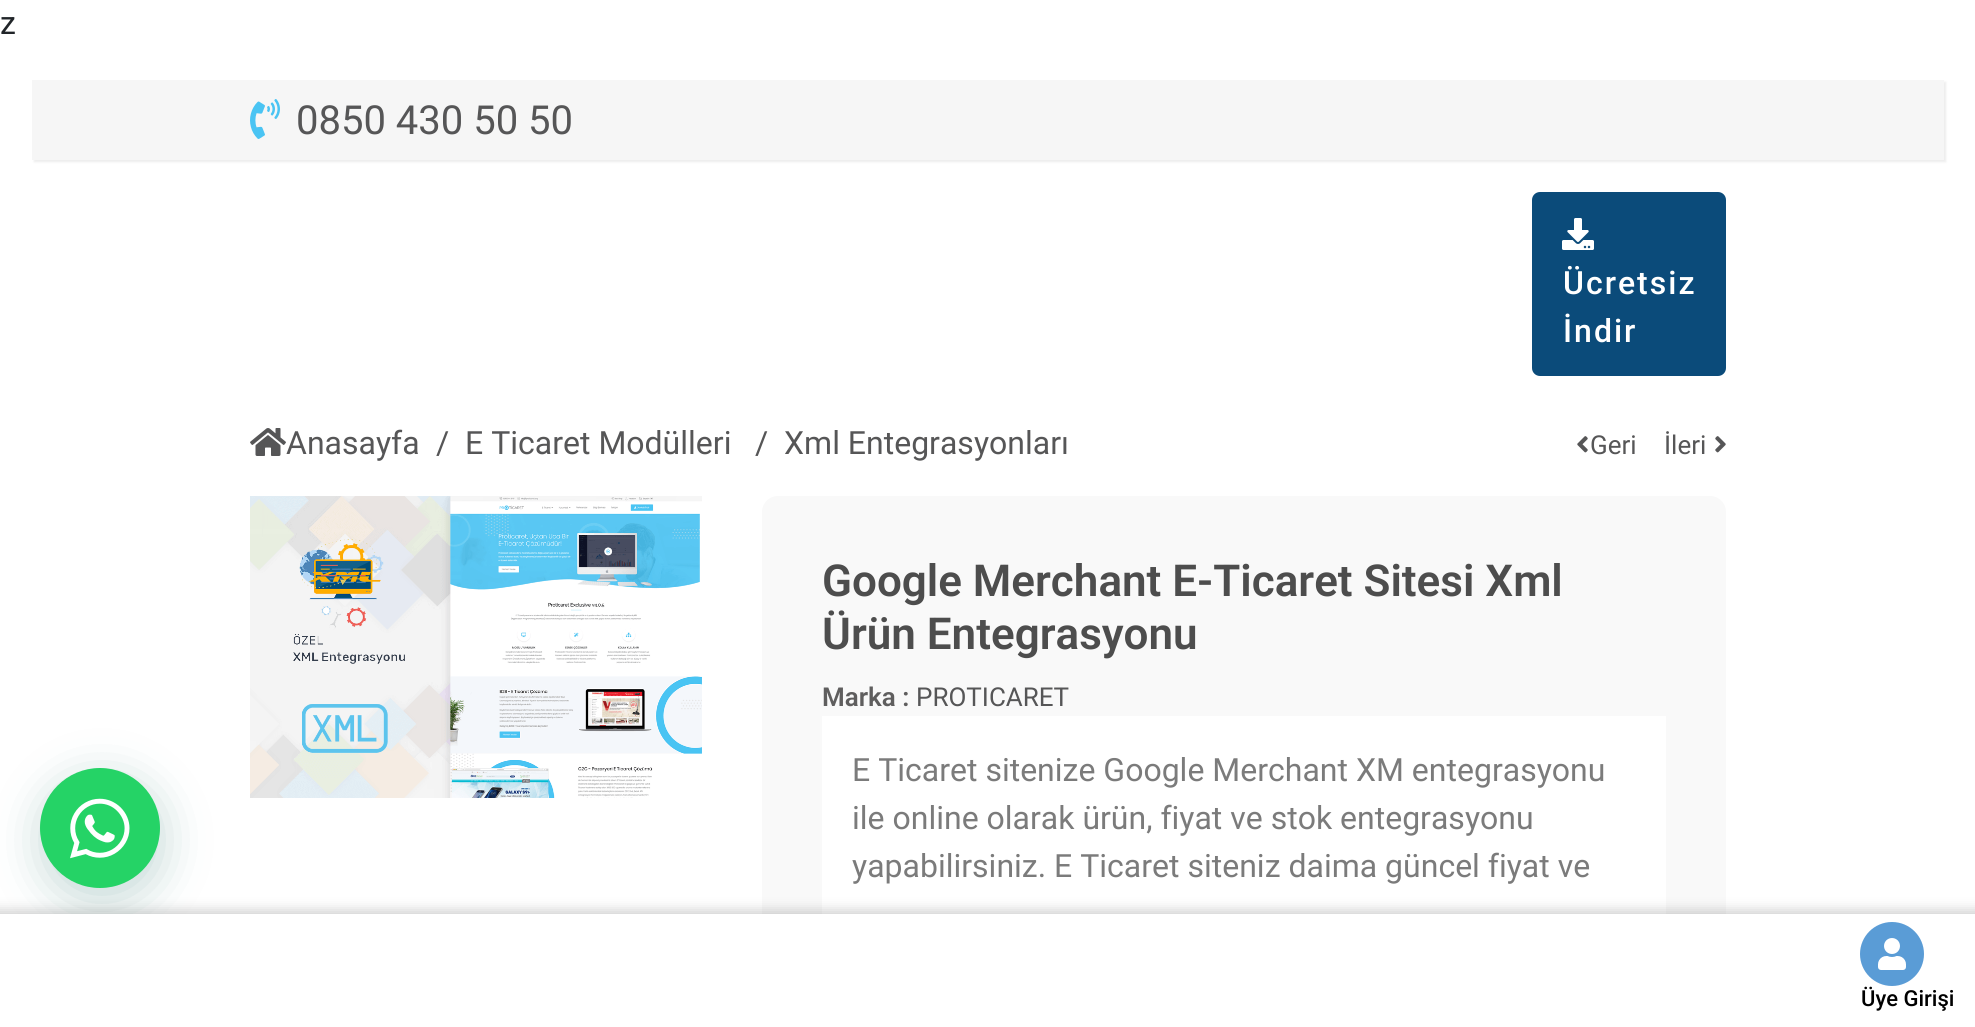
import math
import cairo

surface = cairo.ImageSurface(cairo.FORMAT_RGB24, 1975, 1027)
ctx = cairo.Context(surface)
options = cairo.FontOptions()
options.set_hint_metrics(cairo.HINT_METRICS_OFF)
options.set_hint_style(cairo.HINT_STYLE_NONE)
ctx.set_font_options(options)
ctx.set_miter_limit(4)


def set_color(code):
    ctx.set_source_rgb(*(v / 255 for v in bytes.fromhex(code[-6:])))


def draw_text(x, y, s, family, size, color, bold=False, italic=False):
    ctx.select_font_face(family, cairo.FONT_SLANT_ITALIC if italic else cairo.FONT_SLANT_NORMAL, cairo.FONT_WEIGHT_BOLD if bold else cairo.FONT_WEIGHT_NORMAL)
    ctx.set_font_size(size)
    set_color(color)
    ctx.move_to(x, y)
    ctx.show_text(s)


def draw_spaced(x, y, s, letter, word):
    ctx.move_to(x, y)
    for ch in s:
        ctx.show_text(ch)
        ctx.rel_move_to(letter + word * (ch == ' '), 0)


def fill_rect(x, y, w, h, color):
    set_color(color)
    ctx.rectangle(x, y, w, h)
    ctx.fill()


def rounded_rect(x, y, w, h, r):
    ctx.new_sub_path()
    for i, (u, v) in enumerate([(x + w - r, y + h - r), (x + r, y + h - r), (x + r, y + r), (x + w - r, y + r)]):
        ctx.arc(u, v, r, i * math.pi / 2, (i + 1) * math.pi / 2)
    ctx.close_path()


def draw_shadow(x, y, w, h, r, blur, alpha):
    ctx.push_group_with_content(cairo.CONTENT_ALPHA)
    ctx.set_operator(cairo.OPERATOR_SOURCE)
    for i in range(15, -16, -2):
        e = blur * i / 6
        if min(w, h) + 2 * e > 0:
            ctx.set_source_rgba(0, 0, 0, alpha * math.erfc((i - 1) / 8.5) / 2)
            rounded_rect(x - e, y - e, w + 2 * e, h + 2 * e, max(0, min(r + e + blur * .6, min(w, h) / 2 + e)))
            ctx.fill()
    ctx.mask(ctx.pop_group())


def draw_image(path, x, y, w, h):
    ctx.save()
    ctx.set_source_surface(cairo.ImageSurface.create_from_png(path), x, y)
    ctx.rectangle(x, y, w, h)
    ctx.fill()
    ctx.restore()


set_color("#ffffff")
ctx.paint()
draw_text(0, 34, "z", "Roboto", 32, "#212529")
set_color("#ededed")
draw_shadow(34, 82, 1912, 80, 0, 1, 1)
fill_rect(32, 80, 1912, 80, "#f6f6f6")
draw_image("assets/img1.png", 250, 99, 30, 40)
draw_text(296, 134, "0850 430 50 50", "Roboto", 40, "#565657")
set_color("#f9f9f9")
rounded_rect(762, 496, 964, 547, 16)
ctx.fill()
fill_rect(822, 716, 844, 198, "#ffffff")
set_color("#000000")
draw_shadow(-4, 910, 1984, 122, 0, 6, 0.18)
set_color("#075e54")
draw_shadow(42, 780, 120, 120, 60, 24, 0.24)
fill_rect(0, 914, 1975, 113, "#ffffff")
set_color("#5a9cd6")
ctx.arc(1892, 954, 32, 0, 2 * math.pi)
ctx.fill()
draw_image("assets/img2.png", 1878, 938, 28, 32)
draw_text(1861, 1006, "Üye Girişi", "Roboto Medium", 22, "#000000")
set_color("#0b4b7a")
rounded_rect(1532, 192, 194, 184, 8)
ctx.fill()
draw_image("assets/img3.png", 1562, 218, 32, 32)
ctx.set_font_size(32)
set_color("#ffffff")
draw_spaced(1563, 294, "Ücretsiz", 2, 0)
draw_spaced(1563, 342, "İndir", 2, 0)
set_color("#25d366")
ctx.new_path()
ctx.arc(100, 828, 60, 0, 2 * math.pi)
ctx.fill()
draw_image("assets/img4.png", 70, 798, 60, 61)
draw_image("assets/img5.png", 250, 428, 36, 28)
draw_text(286, 454, "Anasayfa", "Roboto", 32, "#565657")
draw_text(436, 454, "/", "Roboto", 32, "#565657")
draw_text(465, 454, "E Ticaret Modülleri", "Roboto", 32, "#565657")
draw_text(755, 454, "/", "Roboto", 32, "#565657")
draw_text(784, 454, "Xml Entegrasyonları", "Roboto", 32, "#565657")
draw_image("assets/img6.png", 1577, 436, 11, 17)
draw_text(1590, 454, "Geri", "Roboto", 26, "#565657")
draw_text(1664, 454, "İleri", "Roboto", 26, "#565657")
draw_image("assets/img7.png", 1715, 436, 11, 17)
draw_image("assets/img8.png", 250, 496, 452, 302)
draw_text(822, 596, "Google Merchant E-Ticaret Sitesi Xml", "Roboto SemiBold", 44, "#4d4d4d")
draw_text(822, 649, "Ürün Entegrasyonu", "Roboto SemiBold", 44, "#4d4d4d")
draw_text(822, 706, "Marka :", "Roboto SemiBold", 26, "#5f5e5e")
draw_text(916, 706, "PROTICARET", "Roboto", 26, "#565657")
draw_text(852, 781, "E Ticaret sitenize Google Merchant XM entegrasyonu", "Roboto", 32, "#7b7b7b")
draw_text(852, 829, "ile online olarak ürün, fiyat ve stok entegrasyonu", "Roboto", 32, "#7b7b7b")
draw_text(852, 877, "yapabilirsiniz. E Ticaret siteniz daima güncel fiyat ve", "Roboto", 32, "#7b7b7b")
surface.write_to_png("output.png")
